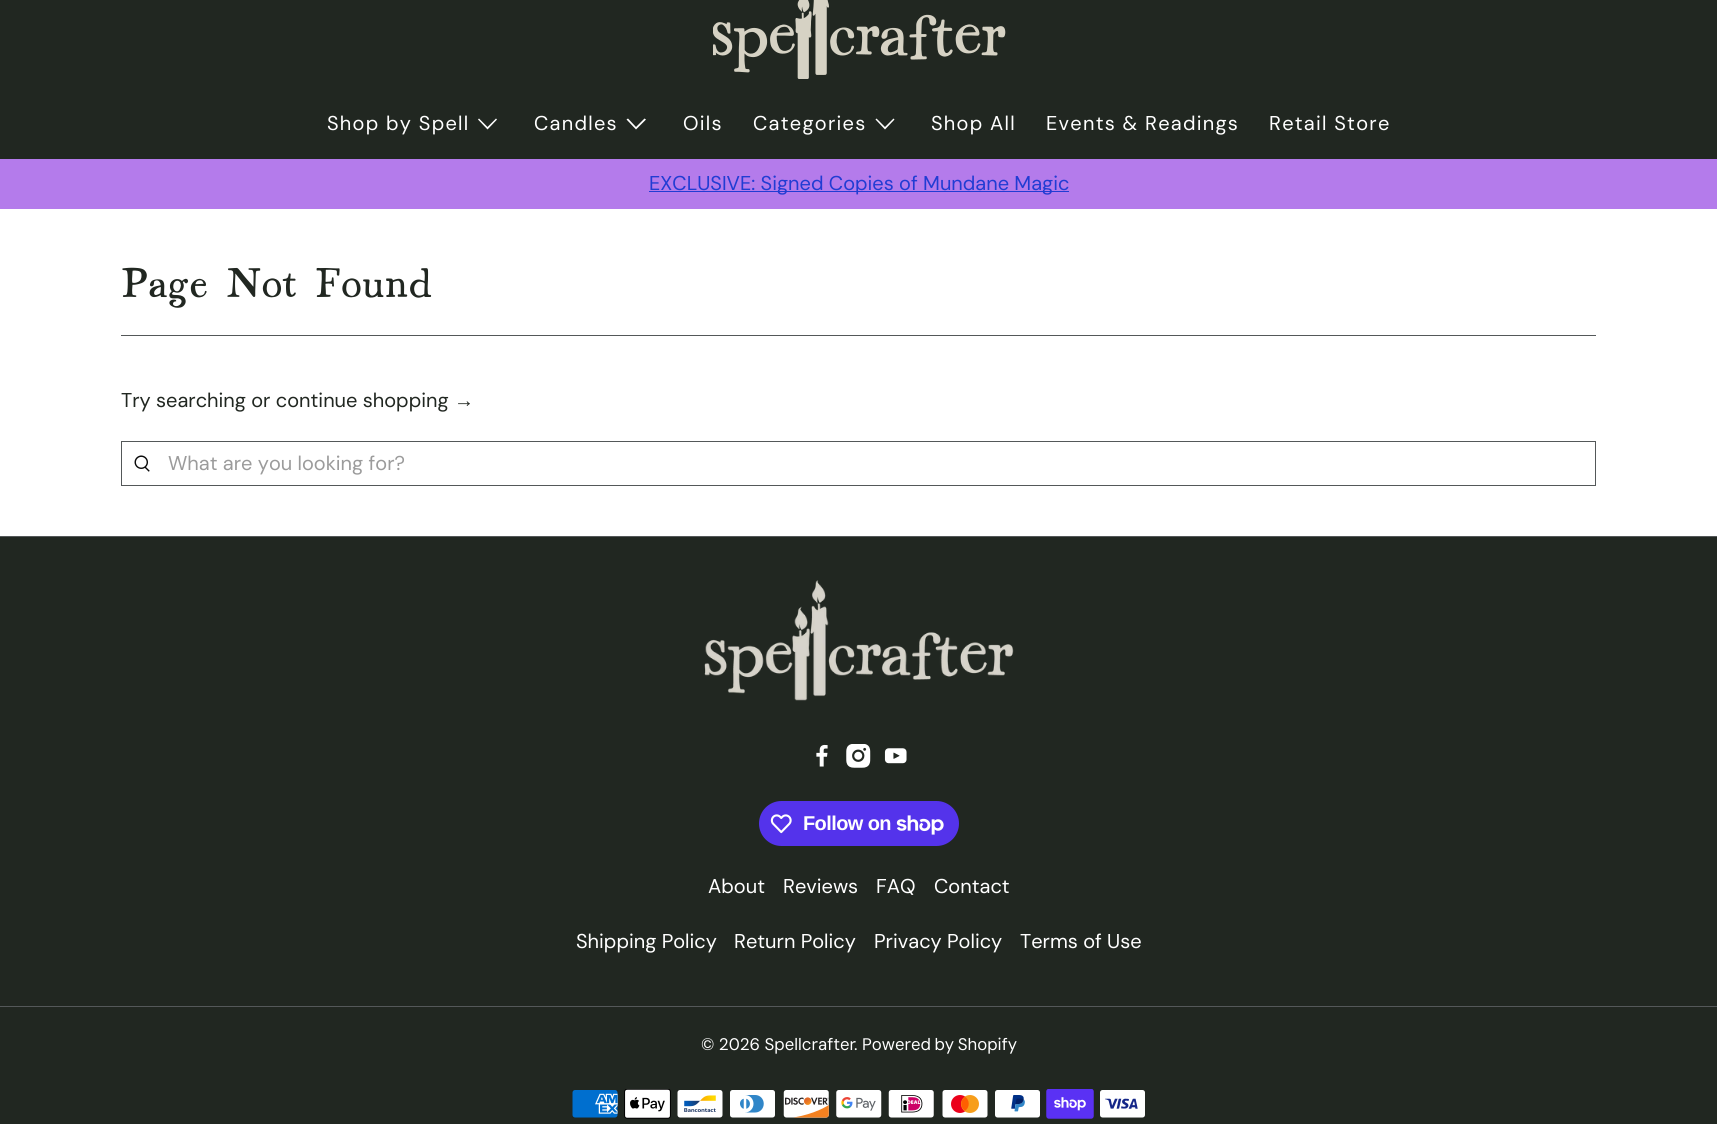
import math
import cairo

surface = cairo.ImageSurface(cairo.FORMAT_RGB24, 1717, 1124)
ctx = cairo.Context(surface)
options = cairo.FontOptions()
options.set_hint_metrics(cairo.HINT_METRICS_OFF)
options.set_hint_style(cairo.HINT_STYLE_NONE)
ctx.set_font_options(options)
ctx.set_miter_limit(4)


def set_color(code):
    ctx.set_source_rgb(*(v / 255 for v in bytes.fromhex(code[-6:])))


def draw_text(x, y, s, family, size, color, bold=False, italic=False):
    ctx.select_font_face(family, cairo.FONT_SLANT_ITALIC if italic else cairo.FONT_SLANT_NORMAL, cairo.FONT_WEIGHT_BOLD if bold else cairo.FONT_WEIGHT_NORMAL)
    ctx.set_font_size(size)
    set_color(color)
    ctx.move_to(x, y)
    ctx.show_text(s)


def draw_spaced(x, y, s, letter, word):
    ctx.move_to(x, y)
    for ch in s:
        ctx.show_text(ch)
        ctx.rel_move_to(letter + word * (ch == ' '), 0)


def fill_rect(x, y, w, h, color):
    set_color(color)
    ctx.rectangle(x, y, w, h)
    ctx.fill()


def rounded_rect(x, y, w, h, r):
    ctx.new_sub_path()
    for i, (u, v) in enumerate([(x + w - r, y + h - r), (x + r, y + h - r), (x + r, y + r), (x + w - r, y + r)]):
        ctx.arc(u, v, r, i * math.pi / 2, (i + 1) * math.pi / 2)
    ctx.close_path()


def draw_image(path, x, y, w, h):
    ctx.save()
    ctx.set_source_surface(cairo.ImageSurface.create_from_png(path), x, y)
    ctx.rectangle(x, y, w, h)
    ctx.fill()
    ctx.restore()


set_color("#ffffff")
ctx.paint()
fill_rect(0, 0, 1717, 159, "#212721")
draw_image("assets/img1.png", 713, 0, 293, 79)
ctx.select_font_face("DM Sans")
ctx.set_font_size(20)
set_color("#ffffff")
draw_spaced(327, 130, "Shop by Spell", 1.25, 0)
ctx.new_path()
ctx.move_to(487.5, 129.5)
ctx.line_to(478, 119.5)
ctx.line_to(479, 118.5)
ctx.line_to(487.5, 127)
ctx.line_to(496, 118.5)
ctx.line_to(497, 119.5)
ctx.close_path()
ctx.fill()
draw_spaced(534, 130, "Candles", 1.25, 0)
ctx.new_path()
ctx.move_to(636, 129.5)
ctx.line_to(626.5, 119.5)
ctx.line_to(628, 118.5)
ctx.line_to(636, 127)
ctx.line_to(644.5, 118.5)
ctx.line_to(646, 119.5)
ctx.close_path()
ctx.fill()
draw_spaced(683, 130, "Oils", 1.25, 0)
draw_spaced(753, 130, "Categories", 1.25, 0)
ctx.new_path()
ctx.move_to(885, 129.5)
ctx.line_to(875.5, 119.5)
ctx.line_to(876.5, 118.5)
ctx.line_to(885, 127)
ctx.line_to(893.5, 118.5)
ctx.line_to(894.5, 119.5)
ctx.close_path()
ctx.fill()
draw_spaced(931, 130, "Shop All", 1.25, 0)
draw_spaced(1046, 130, "Events & Readings", 1.25, 0)
draw_spaced(1269, 130, "Retail Store", 1.25, 0)
fill_rect(0, 159, 1717, 50, "#b47beb")
fill_rect(649, 191, 420, 1, "#213cd3")
draw_text(649, 190, "EXCLUSIVE: Signed Copies of Mundane Magic", "DM Sans", 20, "#213cd3")
draw_text(121, 297, "Page Not Found", "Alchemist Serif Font", 45, "#212721")
fill_rect(121, 335, 1475, 1, "#545859")
draw_text(121, 407, "Try searching or continue shopping", "DM Sans", 20, "#212721")
draw_text(454, 407, "→", "Liberation Sans", 20, "#212721")
ctx.rectangle(121.5, 441.5, 1474, 44)
set_color("#545859")
ctx.set_line_width(1)
ctx.stroke()
draw_image("assets/img2.png", 134, 455, 16, 17)
draw_text(168, 470, "What are you looking for?", "DM Sans", 20, "#9b9b9b")
fill_rect(0, 537, 1717, 587, "#212721")
fill_rect(0, 536, 1717, 1, "#545859")
fill_rect(0, 1006, 1717, 1, "#545859")
draw_image("assets/img3.png", 704, 580, 310, 121)
draw_image("assets/img4.png", 816, 744, 12, 23)
draw_image("assets/img5.png", 846, 744, 25, 24)
draw_image("assets/img6.png", 884, 748, 23, 16)
set_color("#5433eb")
rounded_rect(759, 801, 200, 45, 22.5)
ctx.fill()
draw_image("assets/img7.png", 770, 814, 22, 20)
ctx.select_font_face("Liberation Sans", cairo.FONT_SLANT_NORMAL, cairo.FONT_WEIGHT_BOLD)
set_color("#ffffff")
draw_spaced(803, 830, "Follow on", -0.6, 0)
draw_image("assets/img8.png", 896, 815, 48, 20)
draw_text(708, 893, "About", "DM Sans", 20, "#ffffff")
draw_text(783, 893, "Reviews", "DM Sans", 20, "#ffffff")
draw_text(876, 893, "FAQ", "DM Sans", 20, "#ffffff")
draw_text(934, 893, "Contact", "DM Sans", 20, "#ffffff")
draw_text(576, 948, "Shipping Policy", "DM Sans", 20, "#ffffff")
draw_text(734, 948, "Return Policy", "DM Sans", 20, "#ffffff")
draw_text(874, 948, "Privacy Policy", "DM Sans", 20, "#ffffff")
draw_text(1020, 948, "Terms of Use", "DM Sans", 20, "#ffffff")
draw_text(701, 1050, "© 2026 Spellcrafter", "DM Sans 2", 16.75, "#ffffff")
draw_text(854, 1050, ".", "DM Sans 2", 16.75, "#ffffff")
draw_spaced(862, 1050, "Powered by Shopify", 0, -1)
draw_image("assets/img9.png", 572, 1090, 46, 28)
draw_image("assets/img10.png", 624, 1089, 47, 30)
draw_image("assets/img11.png", 677, 1090, 46, 28)
draw_image("assets/img12.png", 730, 1090, 45, 28)
draw_image("assets/img13.png", 783, 1090, 46, 28)
draw_image("assets/img14.png", 836, 1090, 46, 28)
draw_image("assets/img15.png", 888, 1090, 46, 28)
draw_image("assets/img16.png", 942, 1090, 46, 28)
draw_image("assets/img17.png", 995, 1090, 45, 28)
draw_image("assets/img18.png", 1046, 1089, 48, 30)
draw_image("assets/img19.png", 1100, 1090, 45, 28)
surface.write_to_png("output.png")
